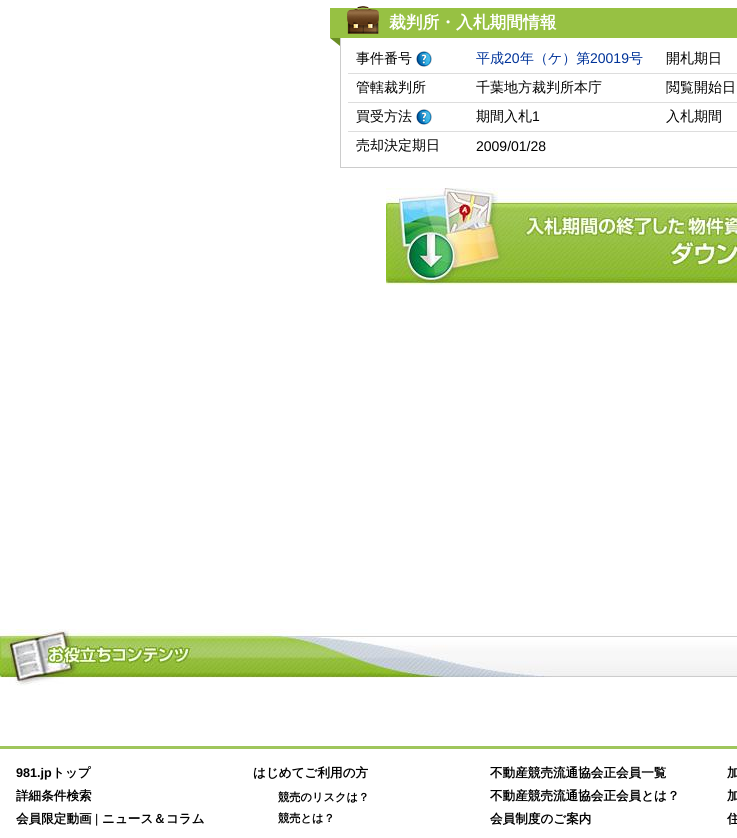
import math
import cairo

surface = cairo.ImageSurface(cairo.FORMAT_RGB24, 737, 838)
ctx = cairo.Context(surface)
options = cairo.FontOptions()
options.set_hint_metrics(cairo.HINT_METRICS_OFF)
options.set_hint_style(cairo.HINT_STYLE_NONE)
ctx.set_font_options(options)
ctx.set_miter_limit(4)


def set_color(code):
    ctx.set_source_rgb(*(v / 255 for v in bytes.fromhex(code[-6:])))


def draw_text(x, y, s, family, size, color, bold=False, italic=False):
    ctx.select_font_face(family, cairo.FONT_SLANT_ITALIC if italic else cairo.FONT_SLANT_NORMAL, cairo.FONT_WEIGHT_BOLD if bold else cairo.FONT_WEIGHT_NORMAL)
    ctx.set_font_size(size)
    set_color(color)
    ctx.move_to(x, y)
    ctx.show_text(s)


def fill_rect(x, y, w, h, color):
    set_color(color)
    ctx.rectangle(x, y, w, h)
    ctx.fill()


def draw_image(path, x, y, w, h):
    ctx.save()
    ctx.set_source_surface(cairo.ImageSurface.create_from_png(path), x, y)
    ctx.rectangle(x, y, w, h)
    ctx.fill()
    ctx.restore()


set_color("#ffffff")
ctx.paint()
fill_rect(330, 8, 407, 30, "#97c143")
draw_image("assets/img1.png", 347, 6, 32, 28)
draw_text(389, 28, "裁判所・入札期間情報", "WenQuanYi Zen Hei", 16.75, "#ffffff", bold=True)
set_color("#6a8d24")
ctx.new_path()
ctx.move_to(340, 38)
ctx.line_to(340, 46)
ctx.line_to(330, 38)
ctx.close_path()
ctx.fill()
fill_rect(340, 167, 397, 1, "#cccccc")
fill_rect(340, 38, 1, 130, "#cccccc")
fill_rect(348, 73, 389, 1, "#dddddd")
draw_text(356, 63, "事件番号", "WenQuanYi Zen Hei Medium", 14, "#000000")
draw_image("assets/img2.png", 416, 51, 16, 16)
draw_text(476, 63, "平成", "WenQuanYi Zen Hei Medium", 14, "#003399")
draw_text(504, 63, "20", "Liberation Sans", 14, "#003399")
draw_text(520, 63, "年（ケ）第", "WenQuanYi Zen Hei Medium", 14, "#003399")
draw_text(590, 63, "20019", "Liberation Sans", 14, "#003399")
draw_text(629, 63, "号", "WenQuanYi Zen Hei Medium", 14, "#003399")
draw_text(666, 63, "開札期日", "WenQuanYi Zen Hei Medium", 14, "#000000")
fill_rect(348, 102, 389, 1, "#dddddd")
draw_text(356, 92, "管轄裁判所", "WenQuanYi Zen Hei Medium", 14, "#000000")
draw_text(476, 92, "千葉地方裁判所本庁", "WenQuanYi Zen Hei Medium", 14, "#000000")
draw_text(666, 92, "閲覧開始日", "WenQuanYi Zen Hei Medium", 14, "#000000")
fill_rect(348, 131, 389, 1, "#dddddd")
draw_text(356, 121, "買受方法", "WenQuanYi Zen Hei Medium", 14, "#000000")
draw_image("assets/img2.png", 416, 109, 16, 16)
draw_text(476, 121, "期間入札", "WenQuanYi Zen Hei Medium", 14, "#000000")
draw_text(532, 121, "1", "Liberation Sans", 14, "#000000")
draw_text(666, 121, "入札期間", "WenQuanYi Zen Hei Medium", 14, "#000000")
draw_text(356, 150, "売却決定期日", "WenQuanYi Zen Hei Medium", 14, "#000000")
draw_text(476, 151, "2009/01/28", "Liberation Sans", 14, "#000000")
draw_image("assets/img3.png", 386, 188, 351, 97)
draw_image("assets/img4.png", 0, 629, 737, 57)
fill_rect(0, 746, 737, 3, "#9fc65c")
draw_text(16, 777, "981.jp", "Liberation Sans", 12.6, "#000000", bold=True)
draw_text(52, 777, "トップ", "WenQuanYi Zen Hei", 12.6, "#000000", bold=True)
draw_text(16, 800, "詳細条件検索", "WenQuanYi Zen Hei", 12.6, "#000000", bold=True)
draw_text(16, 823, "会員限定動画", "WenQuanYi Zen Hei", 12.6, "#000000", bold=True)
draw_text(95, 823, "|", "Liberation Sans", 12.6, "#000000")
draw_text(102, 823, "ニュース＆コラム", "WenQuanYi Zen Hei", 12.6, "#000000", bold=True)
draw_text(253, 777, "はじめてご利用の方", "WenQuanYi Zen Hei", 12.6, "#000000", bold=True)
draw_text(278, 801, "競売のリスクは？", "WenQuanYi Zen Hei", 11.25, "#000000", bold=True)
draw_text(278, 822, "競売とは？", "WenQuanYi Zen Hei", 11.25, "#000000", bold=True)
draw_text(490, 777, "不動産競売流通協会正会員一覧", "WenQuanYi Zen Hei", 12.6, "#000000", bold=True)
draw_text(490, 800, "不動産競売流通協会正会員とは？", "WenQuanYi Zen Hei", 12.6, "#000000", bold=True)
draw_text(490, 823, "会員制度のご案内", "WenQuanYi Zen Hei", 12.6, "#000000", bold=True)
draw_text(727, 777, "加", "WenQuanYi Zen Hei", 12.6, "#000000", bold=True)
draw_text(727, 800, "加", "WenQuanYi Zen Hei", 12.6, "#000000", bold=True)
draw_text(727, 823, "住", "WenQuanYi Zen Hei", 12.6, "#000000", bold=True)
surface.write_to_png("output.png")
